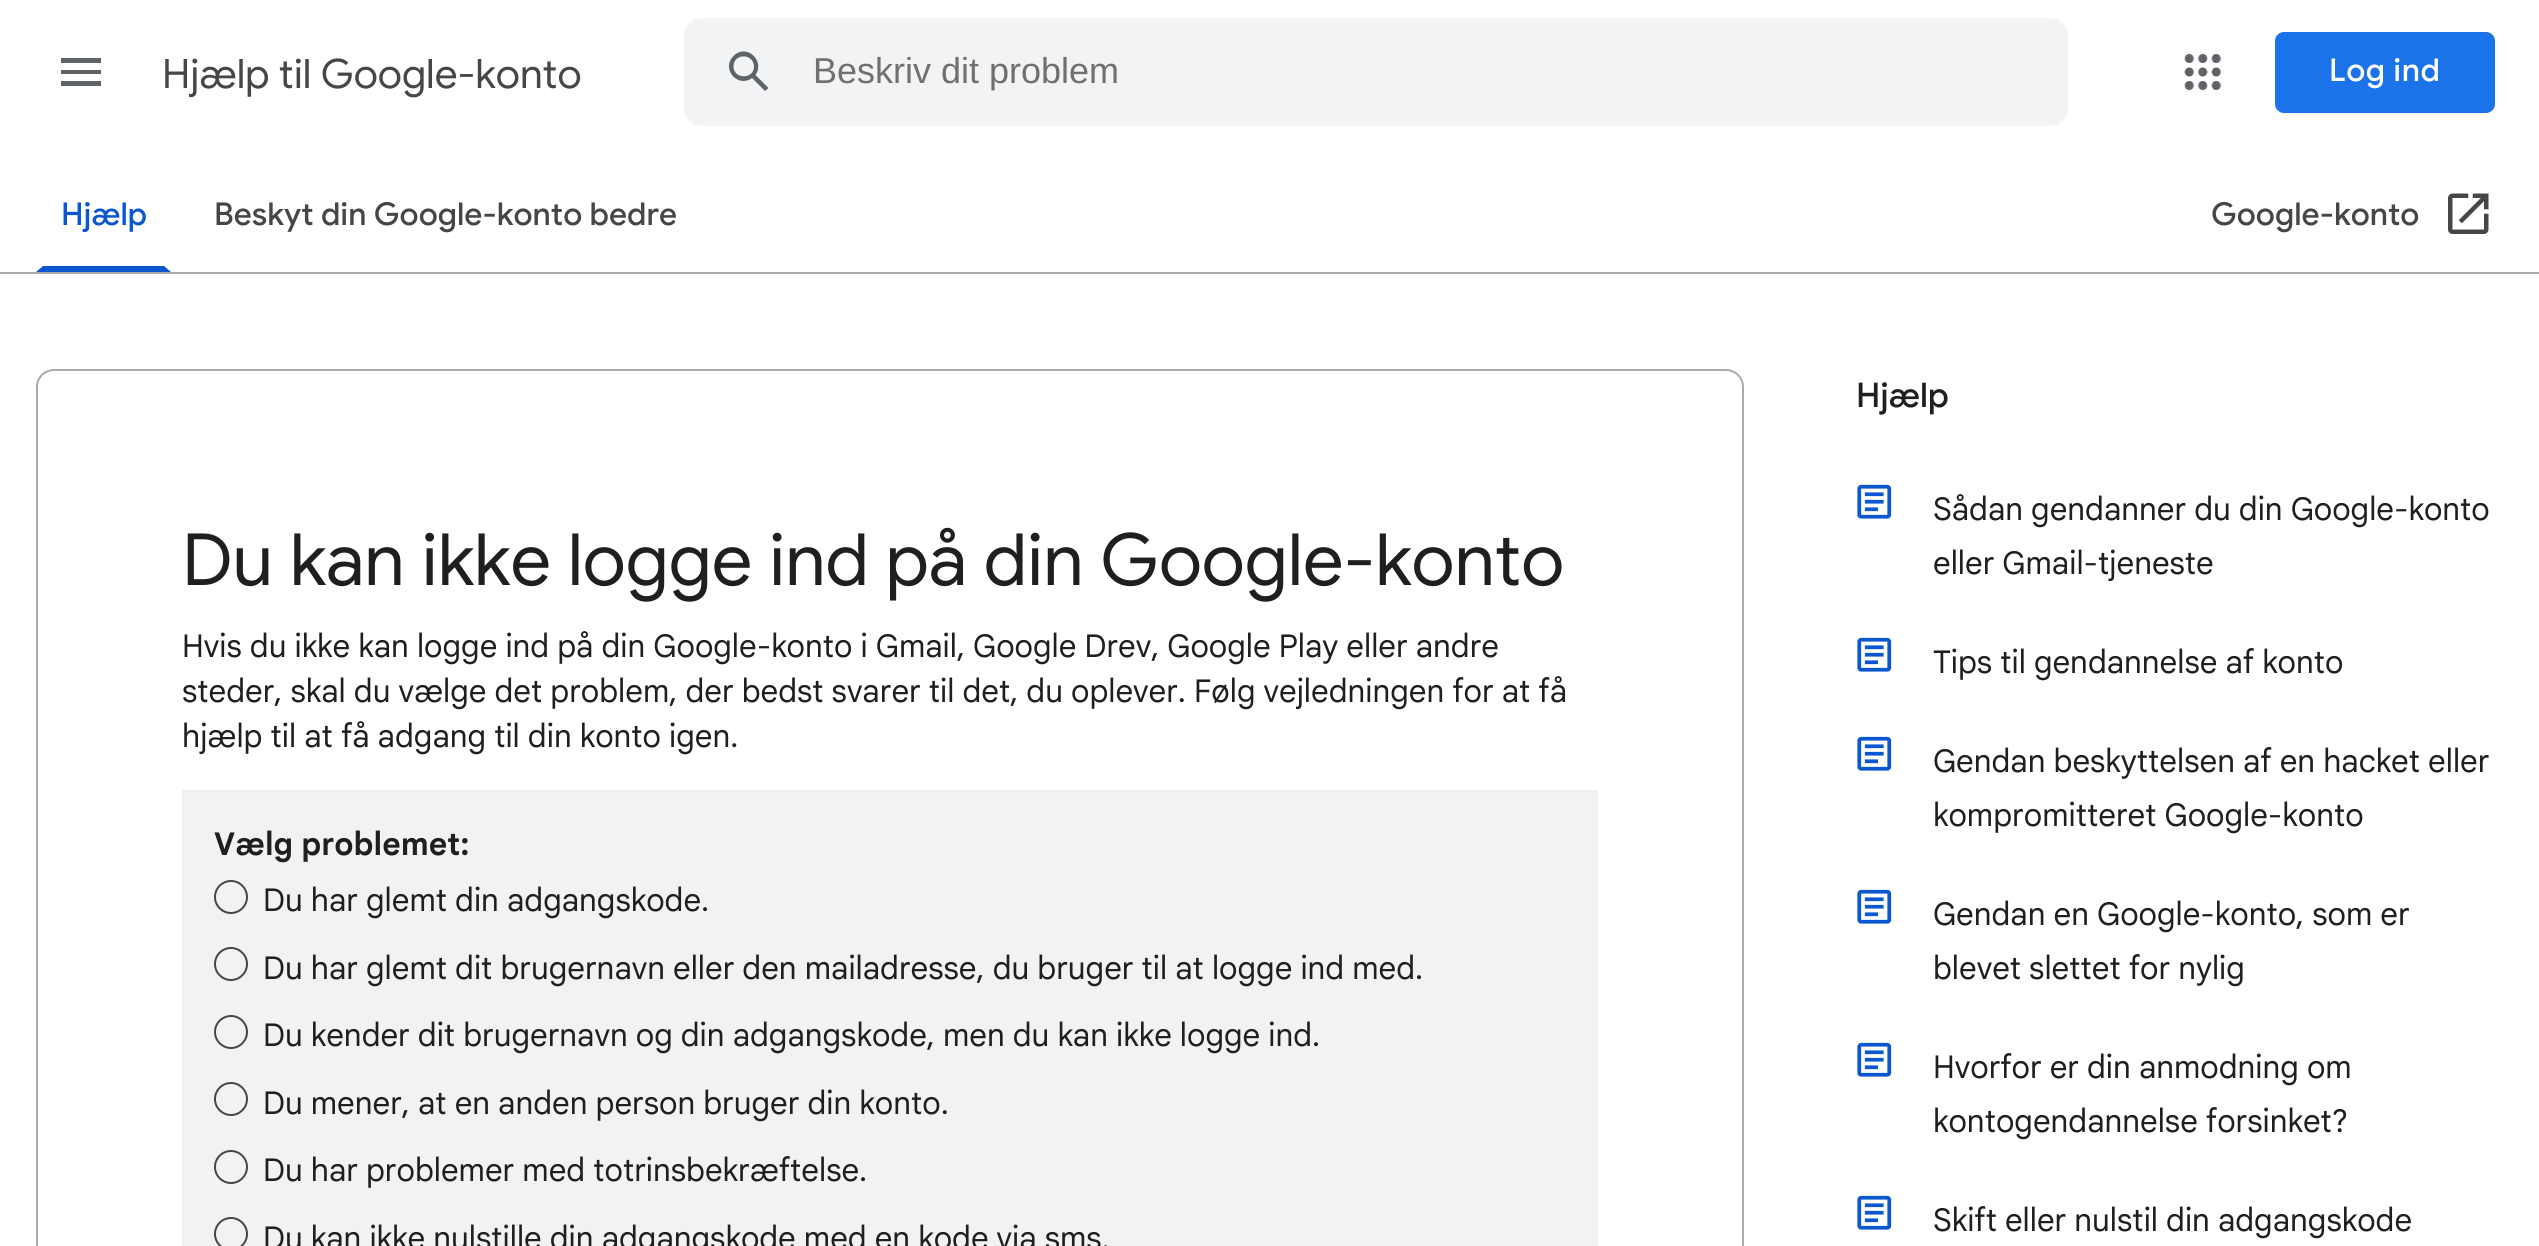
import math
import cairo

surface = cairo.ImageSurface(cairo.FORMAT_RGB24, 2539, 1246)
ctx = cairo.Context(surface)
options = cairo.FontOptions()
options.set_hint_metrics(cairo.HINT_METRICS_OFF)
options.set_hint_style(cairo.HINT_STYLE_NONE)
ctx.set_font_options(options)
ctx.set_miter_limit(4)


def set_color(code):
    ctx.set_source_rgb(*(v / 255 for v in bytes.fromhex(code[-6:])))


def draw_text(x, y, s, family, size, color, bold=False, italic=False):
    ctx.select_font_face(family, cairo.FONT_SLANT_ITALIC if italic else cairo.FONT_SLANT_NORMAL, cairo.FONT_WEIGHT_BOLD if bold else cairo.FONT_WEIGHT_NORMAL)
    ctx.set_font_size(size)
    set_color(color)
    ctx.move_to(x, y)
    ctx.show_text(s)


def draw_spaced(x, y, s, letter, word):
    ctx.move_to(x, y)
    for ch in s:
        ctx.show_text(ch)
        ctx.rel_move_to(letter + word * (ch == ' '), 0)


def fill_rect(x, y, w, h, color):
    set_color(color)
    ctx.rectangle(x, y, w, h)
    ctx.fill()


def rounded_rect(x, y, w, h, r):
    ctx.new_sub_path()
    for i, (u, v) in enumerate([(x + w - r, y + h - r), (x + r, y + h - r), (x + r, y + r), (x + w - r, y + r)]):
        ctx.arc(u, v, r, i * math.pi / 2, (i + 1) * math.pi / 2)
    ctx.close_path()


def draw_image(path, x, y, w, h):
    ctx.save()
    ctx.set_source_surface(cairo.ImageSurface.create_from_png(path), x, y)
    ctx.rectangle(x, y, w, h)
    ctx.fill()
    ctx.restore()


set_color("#ffffff")
ctx.paint()
set_color("#5f6368")
ctx.new_path()
ctx.move_to(61, 86)
ctx.line_to(101, 86)
ctx.line_to(101, 81)
ctx.line_to(61, 81)
ctx.close_path()
ctx.move_to(61, 74)
ctx.line_to(101, 74)
ctx.line_to(101, 70)
ctx.line_to(61, 70)
ctx.close_path()
ctx.move_to(61, 58)
ctx.line_to(61, 63)
ctx.line_to(101, 63)
ctx.line_to(101, 58)
ctx.close_path()
ctx.fill()
draw_text(162, 88, "Hjælp til Google-konto", "Google Sans", 40.5, "#444746")
set_color("#f1f3f4")
rounded_rect(684, 18, 1384, 108, 18)
ctx.fill()
set_color("#5f6368")
ctx.new_path()
ctx.move_to(768.5, 88)
ctx.line_to(755.5, 75)
ctx.curve_to(765.5, 60.5, 746, 43, 733.5, 56)
ctx.curve_to(720.5, 69, 738, 88.5, 752, 78)
ctx.line_to(765, 91)
ctx.close_path()
ctx.move_to(733.5, 66.5)
ctx.curve_to(733.5, 53, 753.5, 53, 754, 66.5)
ctx.curve_to(754, 79.5, 733.5, 79.5, 733.5, 66.5)
ctx.close_path()
ctx.fill()
draw_text(813, 83, "Beskriv dit problem", "Liberation Sans", 36, "#6f7070")
draw_image("assets/img1.png", 2184, 54, 37, 36)
set_color("#1a73e8")
rounded_rect(2275, 32, 220, 81, 9)
ctx.fill()
ctx.select_font_face("Google Sans Medium")
ctx.set_font_size(31.5)
set_color("#ffffff")
draw_spaced(2329, 81, "Log ind", 0.5, 0)
fill_rect(0, 272, 2539, 2, "#a9acaa")
set_color("#0b57d0")
ctx.new_path()
ctx.move_to(171, 272)
ctx.line_to(36, 272)
ctx.line_to(43, 266)
ctx.line_to(164, 266)
ctx.close_path()
ctx.fill()
draw_text(61, 225, "Hjælp", "Google Sans Medium", 31.5, "#0b57d0")
draw_text(214, 225, "Beskyt din Google-konto bedre", "Google Sans Medium", 31.5, "#444746")
draw_text(2211, 225, "Google-konto", "Google Sans Medium", 31.5, "#444746")
draw_image("assets/img2.png", 2448, 193, 41, 41)
rounded_rect(37, 370, 1706, 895, 17)
set_color("#a9acaa")
ctx.stroke()
draw_text(182, 585, "Du kan ikke logge ind på din Google-konto", "Google Sans", 72, "#1f1f1f")
draw_text(182, 657, "Hvis du ikke kan logge ind på din Google-konto i Gmail, Google Drev, Google Play eller andre", "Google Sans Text", 31.5, "#1f1f1f")
draw_text(182, 702, "steder, skal du vælge det problem, der bedst svarer til det, du oplever. Følg vejledningen for at få", "Google Sans Text", 31.5, "#1f1f1f")
draw_text(182, 747, "hjælp til at få adgang til din konto igen.", "Google Sans Text", 31.5, "#1f1f1f")
fill_rect(182, 790, 1416, 456, "#f2f2f2")
draw_text(214, 855, "Vælg problemet:", "Google Sans Text", 31.5, "#1f1f1f", bold=True)
ctx.new_path()
ctx.arc(231, 897, 16, 0, 2 * math.pi)
set_color("#444746")
ctx.stroke()
draw_text(263, 911, "Du har glemt din adgangskode.", "Google Sans Text", 31.5, "#1f1f1f")
ctx.new_path()
ctx.arc(231, 964, 16, 0, 2 * math.pi)
set_color("#444746")
ctx.stroke()
draw_text(263, 979, "Du har glemt dit brugernavn eller den mailadresse, du bruger til at logge ind med.", "Google Sans Text", 31.5, "#1f1f1f")
ctx.new_path()
ctx.arc(231, 1032, 16, 0, 2 * math.pi)
set_color("#444746")
ctx.stroke()
draw_text(263, 1046, "Du kender dit brugernavn og din adgangskode, men du kan ikke logge ind.", "Google Sans Text", 31.5, "#1f1f1f")
ctx.new_path()
ctx.arc(231, 1099, 16, 0, 2 * math.pi)
set_color("#444746")
ctx.stroke()
draw_text(263, 1114, "Du mener, at en anden person bruger din konto.", "Google Sans Text", 31.5, "#1f1f1f")
ctx.new_path()
ctx.arc(231, 1167, 16, 0, 2 * math.pi)
set_color("#444746")
ctx.stroke()
draw_text(263, 1181, "Du har problemer med totrinsbekræftelse.", "Google Sans Text", 31.5, "#1f1f1f")
ctx.new_path()
ctx.arc(231, 1234, 16, 0, 2 * math.pi)
set_color("#444746")
ctx.stroke()
draw_text(263, 1249, "Du kan ikke nulstille din adgangskode med en kode via sms.", "Google Sans Text", 31.5, "#1f1f1f")
draw_text(1856, 407, "Hjælp", "Google Sans Medium", 34, "#1f1f1f")
draw_image("assets/img3.png", 1857, 484, 35, 35)
draw_text(1933, 520, "Sådan gendanner du din Google-konto", "Google Sans Text", 31.5, "#1f1f1f")
draw_text(1933, 574, "eller Gmail-tjeneste", "Google Sans Text", 31.5, "#1f1f1f")
draw_image("assets/img3.png", 1857, 637, 35, 35)
draw_text(1933, 673, "Tips til gendannelse af konto", "Google Sans Text", 31.5, "#1f1f1f")
draw_image("assets/img3.png", 1857, 736, 35, 35)
draw_text(1933, 772, "Gendan beskyttelsen af en hacket eller", "Google Sans Text", 31.5, "#1f1f1f")
draw_text(1933, 826, "kompromitteret Google-konto", "Google Sans Text", 31.5, "#1f1f1f")
draw_image("assets/img3.png", 1857, 889, 35, 35)
draw_text(1933, 925, "Gendan en Google-konto, som er", "Google Sans Text", 31.5, "#1f1f1f")
draw_text(1933, 979, "blevet slettet for nylig", "Google Sans Text", 31.5, "#1f1f1f")
draw_image("assets/img3.png", 1857, 1042, 35, 35)
draw_text(1933, 1078, "Hvorfor er din anmodning om", "Google Sans Text", 31.5, "#1f1f1f")
draw_text(1933, 1132, "kontogendannelse forsinket?", "Google Sans Text", 31.5, "#1f1f1f")
draw_image("assets/img3.png", 1857, 1195, 35, 35)
draw_text(1933, 1231, "Skift eller nulstil din adgangskode", "Google Sans Text", 31.5, "#1f1f1f")
surface.write_to_png("output.png")
